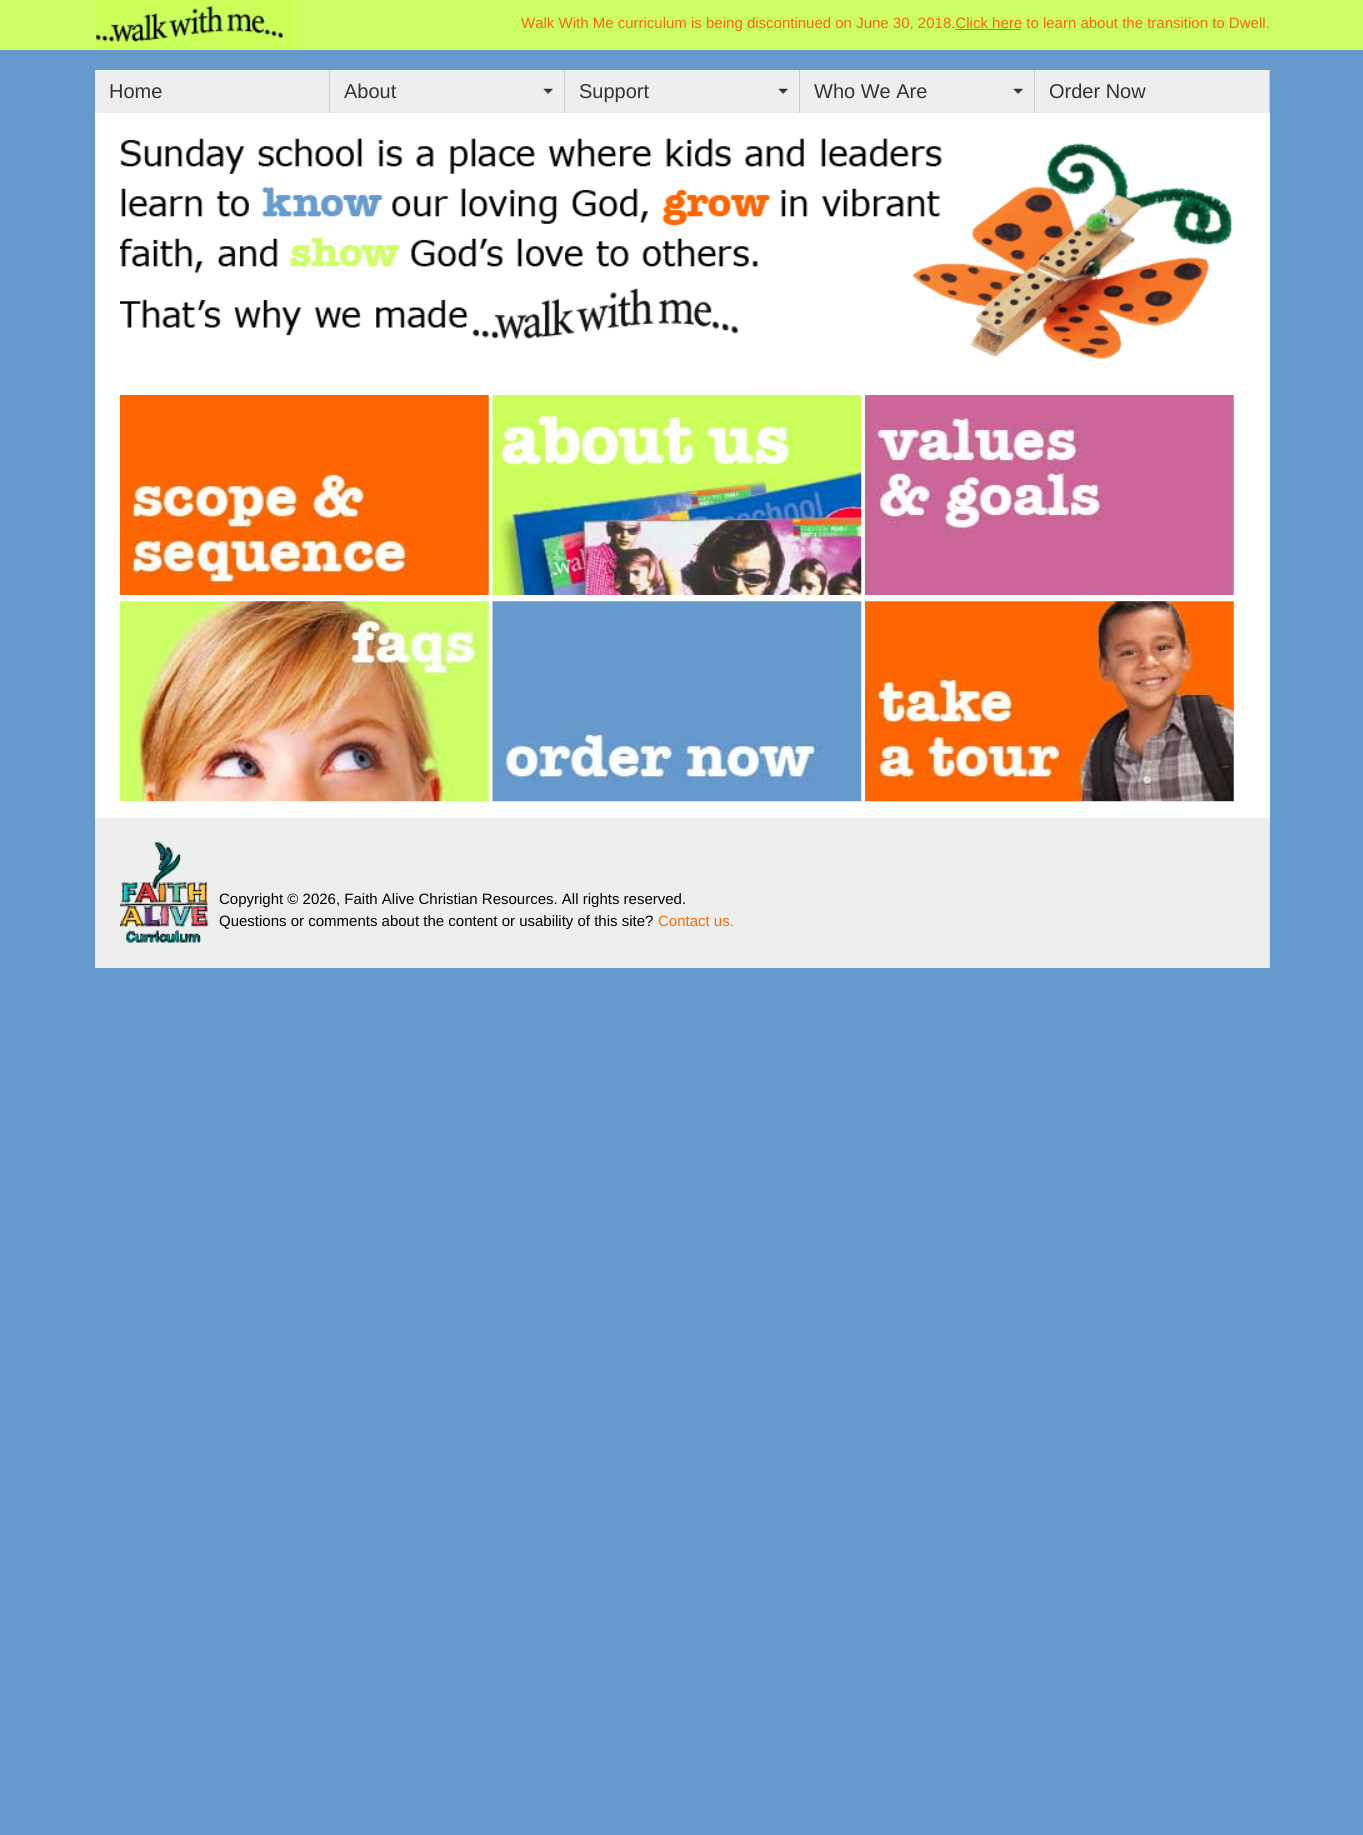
import math
import cairo

surface = cairo.ImageSurface(cairo.FORMAT_RGB24, 1363, 1835)
ctx = cairo.Context(surface)
options = cairo.FontOptions()
options.set_hint_metrics(cairo.HINT_METRICS_OFF)
options.set_hint_style(cairo.HINT_STYLE_NONE)
ctx.set_font_options(options)
ctx.set_miter_limit(4)


def set_color(code):
    ctx.set_source_rgb(*(v / 255 for v in bytes.fromhex(code[-6:])))


def draw_text(x, y, s, family, size, color, bold=False, italic=False):
    ctx.select_font_face(family, cairo.FONT_SLANT_ITALIC if italic else cairo.FONT_SLANT_NORMAL, cairo.FONT_WEIGHT_BOLD if bold else cairo.FONT_WEIGHT_NORMAL)
    ctx.set_font_size(size)
    set_color(color)
    ctx.move_to(x, y)
    ctx.show_text(s)


def fill_rect(x, y, w, h, color):
    set_color(color)
    ctx.rectangle(x, y, w, h)
    ctx.fill()


def draw_image(path, x, y, w, h):
    ctx.save()
    ctx.set_source_surface(cairo.ImageSurface.create_from_png(path), x, y)
    ctx.rectangle(x, y, w, h)
    ctx.fill()
    ctx.restore()


set_color("#6699cc")
ctx.paint()
fill_rect(0, 0, 1363, 50, "#ccff66")
draw_image("assets/img1.png", 95, 0, 204, 50)
draw_text(521, 28, "Walk With Me curriculum is being discontinued on June 30, 2018.Click here to learn about the transition to Dwell.", "Liberation Sans", 15, "#ff6600")
fill_rect(955, 29, 66, 1, "#ff6600")
fill_rect(95, 70, 1174, 43, "#eeeeee")
fill_rect(329, 70, 1, 44, "#cccccc")
draw_text(109, 98, "Home", "Liberation Sans", 20, "#333333")
fill_rect(564, 70, 1, 44, "#cccccc")
draw_image("assets/img2.png", 543, 88, 10, 6)
draw_text(344, 98, "About", "Liberation Sans", 20, "#333333")
fill_rect(799, 70, 1, 44, "#cccccc")
draw_image("assets/img3.png", 778, 88, 10, 6)
draw_text(579, 98, "Support", "Liberation Sans", 20, "#333333")
fill_rect(1034, 70, 1, 44, "#cccccc")
draw_image("assets/img2.png", 1013, 88, 10, 6)
draw_text(814, 98, "Who We Are", "Liberation Sans", 20, "#333333")
fill_rect(1269, 70, 1, 44, "#cccccc")
draw_text(1049, 98, "Order Now", "Liberation Sans", 20, "#333333")
fill_rect(95, 113, 1175, 705, "#ffffff")
draw_image("assets/img4.png", 120, 138, 1112, 221)
draw_image("assets/img5.png", 120, 395, 369, 200)
draw_image("assets/img6.png", 492, 395, 370, 200)
draw_image("assets/img7.png", 865, 395, 369, 200)
draw_image("assets/img8.png", 120, 601, 369, 201)
draw_image("assets/img9.png", 492, 601, 370, 201)
draw_image("assets/img10.png", 865, 601, 369, 201)
fill_rect(95, 818, 1175, 150, "#edefee")
draw_image("assets/img11.png", 120, 842, 89, 101)
draw_text(219, 904, "Copyright © 2026, Faith Alive Christian Resources. All rights reserved.", "Liberation Sans", 15, "#000000")
draw_text(219, 926, "Questions or comments about the content or usability of this site?", "Liberation Sans", 15, "#000000")
draw_text(658, 926, "Contact us.", "Liberation Sans", 15, "#ff6600")
surface.write_to_png("output.png")
